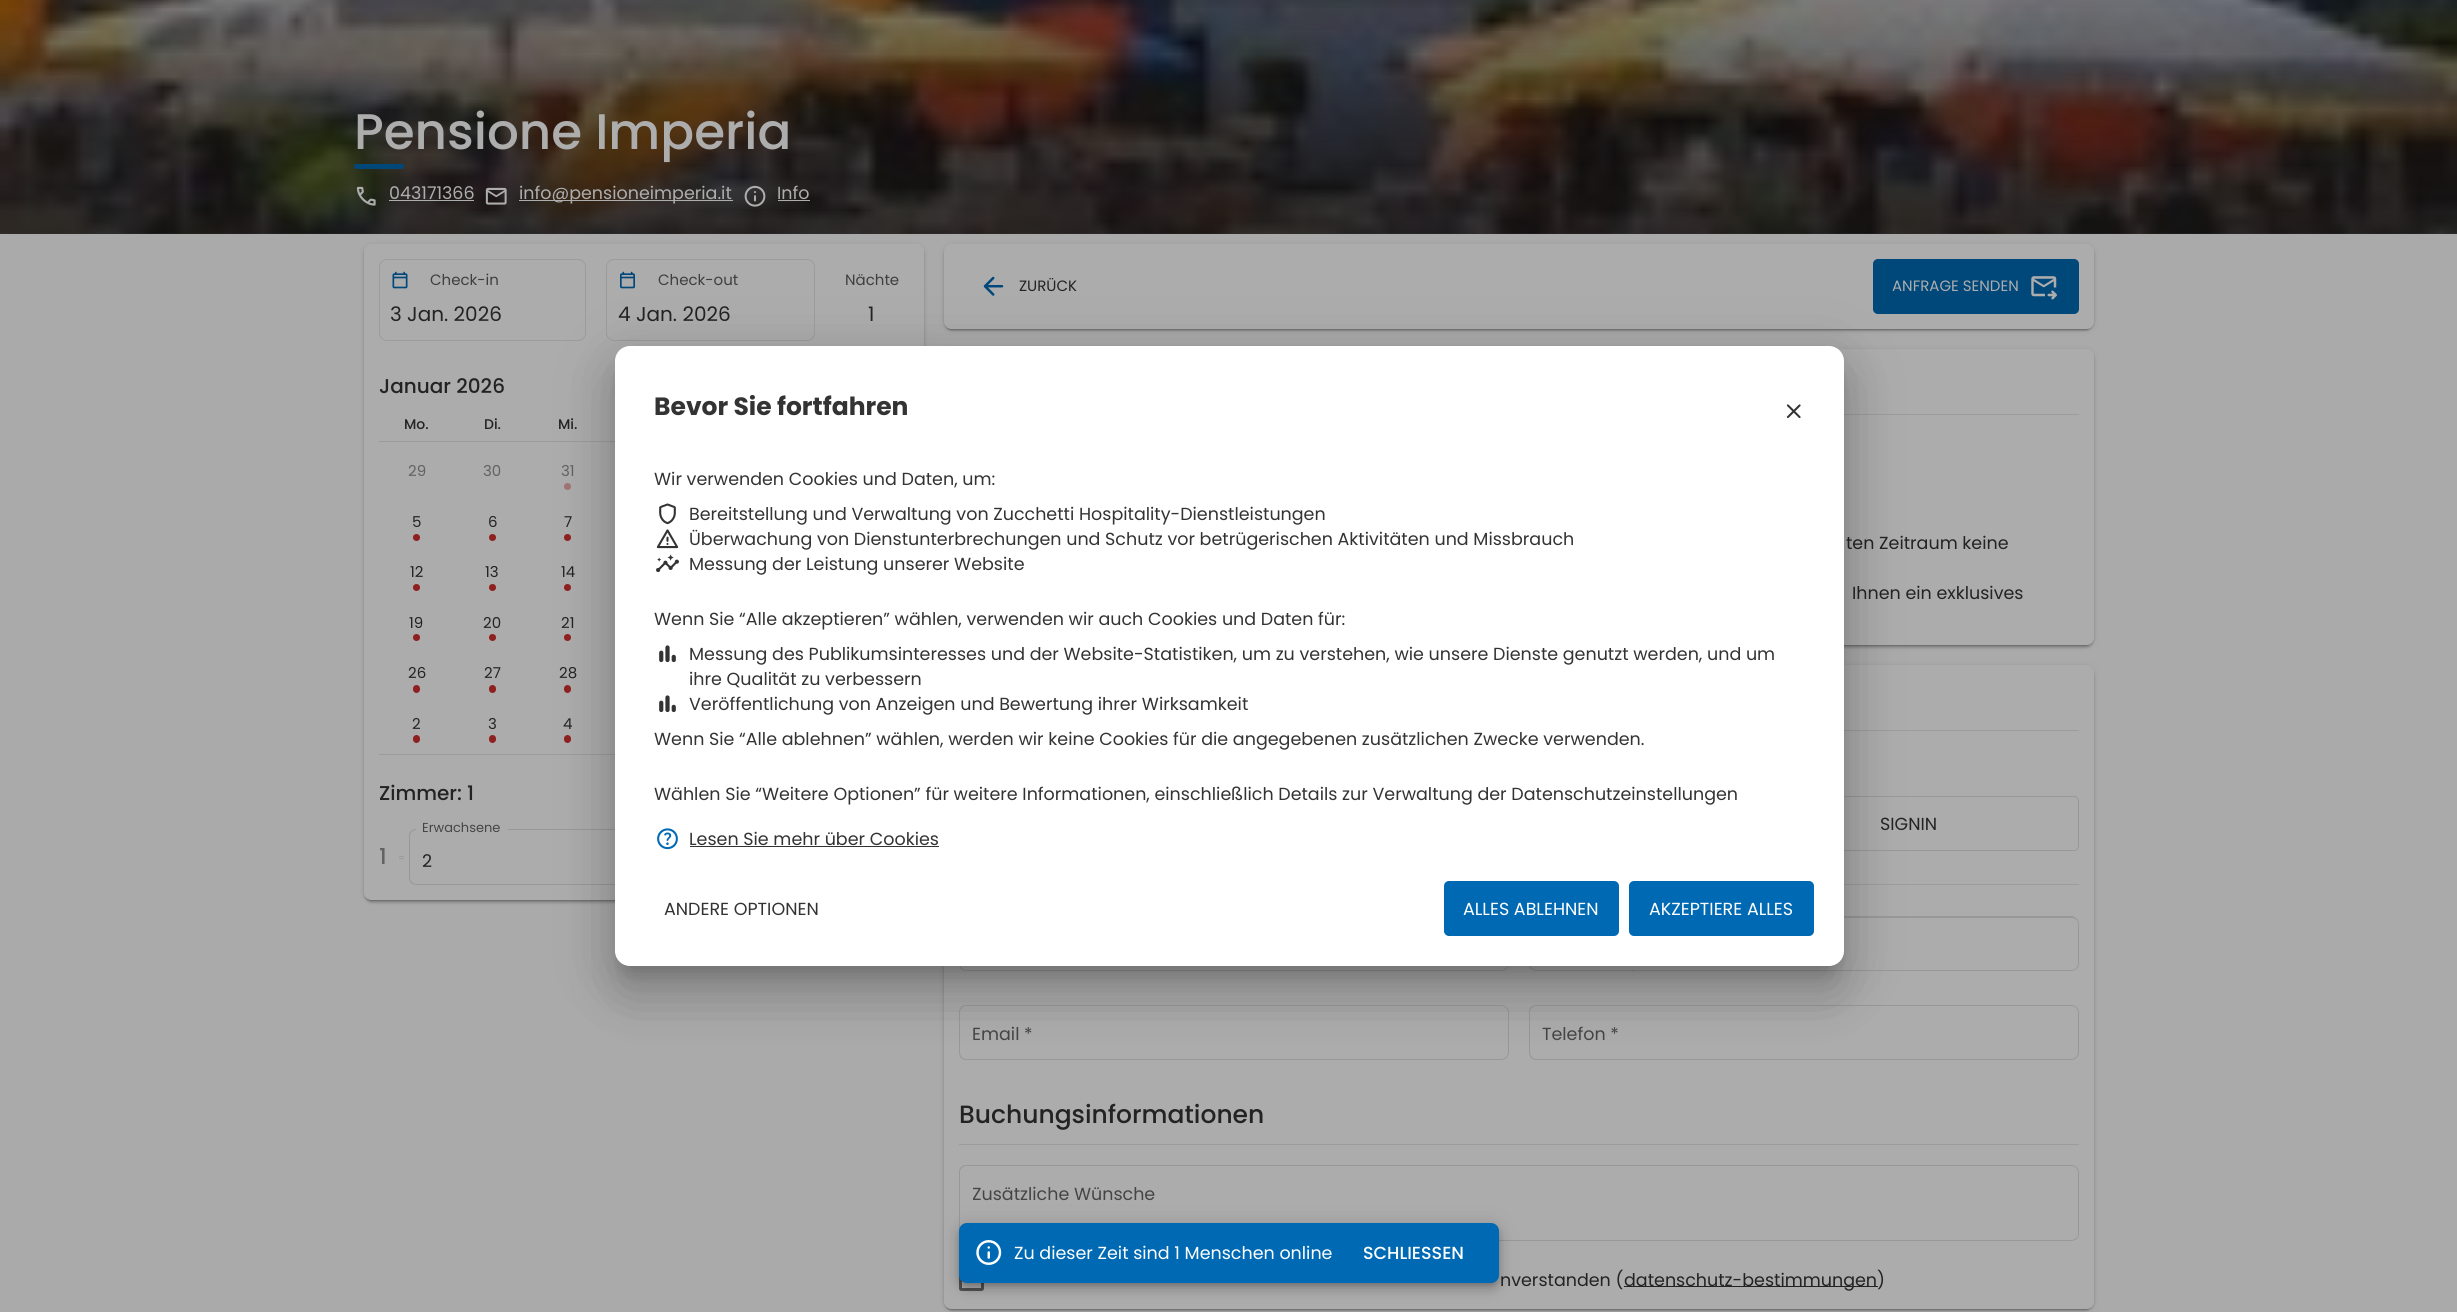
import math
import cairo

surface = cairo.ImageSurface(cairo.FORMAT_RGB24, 2457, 1312)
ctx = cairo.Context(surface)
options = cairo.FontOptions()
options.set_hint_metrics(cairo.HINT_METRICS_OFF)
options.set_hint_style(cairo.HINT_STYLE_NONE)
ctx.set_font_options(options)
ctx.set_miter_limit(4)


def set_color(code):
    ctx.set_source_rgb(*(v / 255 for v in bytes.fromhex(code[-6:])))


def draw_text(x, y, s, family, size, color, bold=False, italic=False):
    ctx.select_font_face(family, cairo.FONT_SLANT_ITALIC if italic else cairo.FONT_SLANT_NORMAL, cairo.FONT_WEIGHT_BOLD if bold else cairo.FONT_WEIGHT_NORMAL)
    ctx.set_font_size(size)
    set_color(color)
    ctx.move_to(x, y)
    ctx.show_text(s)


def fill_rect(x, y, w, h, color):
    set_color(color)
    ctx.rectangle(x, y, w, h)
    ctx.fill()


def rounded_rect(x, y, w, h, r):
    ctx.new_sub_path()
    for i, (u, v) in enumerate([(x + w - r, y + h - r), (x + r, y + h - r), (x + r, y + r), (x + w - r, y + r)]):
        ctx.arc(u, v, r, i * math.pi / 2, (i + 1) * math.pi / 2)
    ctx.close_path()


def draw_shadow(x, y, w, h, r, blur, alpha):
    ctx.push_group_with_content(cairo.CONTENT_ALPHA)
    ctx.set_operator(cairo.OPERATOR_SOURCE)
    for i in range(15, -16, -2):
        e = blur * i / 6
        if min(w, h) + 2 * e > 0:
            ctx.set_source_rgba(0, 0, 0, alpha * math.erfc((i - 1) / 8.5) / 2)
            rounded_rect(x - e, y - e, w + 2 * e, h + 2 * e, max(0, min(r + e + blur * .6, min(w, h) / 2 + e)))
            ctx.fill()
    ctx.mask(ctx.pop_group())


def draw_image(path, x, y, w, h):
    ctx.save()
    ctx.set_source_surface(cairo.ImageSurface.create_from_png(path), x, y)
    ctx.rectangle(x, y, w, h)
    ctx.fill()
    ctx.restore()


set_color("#aaaaaa")
ctx.paint()
draw_image("assets/img1.png", 0, 0, 2457, 234)
gradient = cairo.LinearGradient(1229, -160, 1229, 234)
gradient.add_color_stop_rgba(0, 0.086, 0.086, 0.086, 0)
gradient.add_color_stop_rgba(1, 0.086, 0.086, 0.086, 0.8)
ctx.set_source(gradient)
ctx.rectangle(0, 0, 2457, 234)
ctx.fill()
draw_text(354, 149, "Pensione Imperia", "Poppins Medium", 50, "#adadad")
set_color("#00477a")
rounded_rect(354, 164, 50, 5, 2.5)
ctx.fill()
draw_image("assets/img2.png", 356, 186, 20, 20)
draw_text(389, 199, "043171366", "Poppins", 17.5, "#adadad")
fill_rect(389, 200, 85, 1, "#adadad")
draw_image("assets/img3.png", 485, 187, 22, 18)
fill_rect(519, 200, 214, 1, "#adadad")
draw_text(519, 199, "info@pensioneimperia.it", "Poppins", 17.5, "#adadad")
draw_image("assets/img4.png", 744, 185, 22, 22)
draw_text(777, 199, "Info", "Poppins", 17.5, "#adadad")
fill_rect(778, 200, 32, 1, "#adadad")
ctx.save()
ctx.set_fill_rule(cairo.FILL_RULE_EVEN_ODD)
ctx.new_path()
ctx.move_to(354, 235)
ctx.line_to(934, 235)
ctx.line_to(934, 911)
ctx.line_to(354, 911)
ctx.close_path()
ctx.move_to(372, 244)
ctx.line_to(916, 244)
ctx.curve_to(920.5, 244, 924, 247.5, 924, 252)
ctx.line_to(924, 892)
ctx.curve_to(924, 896.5, 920.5, 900, 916, 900)
ctx.line_to(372, 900)
ctx.curve_to(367.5, 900, 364, 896.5, 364, 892)
ctx.line_to(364, 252)
ctx.curve_to(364, 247.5, 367.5, 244, 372, 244)
ctx.close_path()
ctx.clip()
set_color("#000000")
draw_shadow(364, 245, 560, 656, 8, 3, 0.12)
ctx.restore()
ctx.save()
ctx.set_fill_rule(cairo.FILL_RULE_EVEN_ODD)
ctx.new_path()
ctx.move_to(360, 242)
ctx.line_to(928, 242)
ctx.line_to(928, 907)
ctx.line_to(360, 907)
ctx.close_path()
ctx.move_to(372, 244)
ctx.line_to(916, 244)
ctx.curve_to(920.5, 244, 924, 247.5, 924, 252)
ctx.line_to(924, 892)
ctx.curve_to(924, 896.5, 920.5, 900, 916, 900)
ctx.line_to(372, 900)
ctx.curve_to(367.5, 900, 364, 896.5, 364, 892)
ctx.line_to(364, 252)
ctx.curve_to(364, 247.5, 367.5, 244, 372, 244)
ctx.close_path()
ctx.clip()
set_color("#000000")
draw_shadow(364, 246, 560, 657, 8, 1, 0.14)
ctx.restore()
ctx.save()
ctx.set_fill_rule(cairo.FILL_RULE_EVEN_ODD)
ctx.new_path()
ctx.move_to(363, 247)
ctx.line_to(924, 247)
ctx.line_to(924, 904)
ctx.line_to(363, 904)
ctx.close_path()
ctx.move_to(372, 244)
ctx.line_to(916, 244)
ctx.curve_to(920.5, 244, 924, 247.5, 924, 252)
ctx.line_to(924, 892)
ctx.curve_to(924, 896.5, 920.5, 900, 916, 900)
ctx.line_to(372, 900)
ctx.curve_to(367.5, 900, 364, 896.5, 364, 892)
ctx.line_to(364, 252)
ctx.curve_to(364, 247.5, 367.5, 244, 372, 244)
ctx.close_path()
ctx.clip()
set_color("#000000")
draw_shadow(366, 250, 555, 651, 5, 0.5, 0.2)
ctx.restore()
ctx.set_source_rgba(0.678, 0.678, 0.678, 0.7)
rounded_rect(364, 244, 560, 656, 8)
ctx.fill()
rounded_rect(379.5, 259.5, 206, 81, 7.5)
set_color("#9c9c9c")
ctx.set_line_width(1)
ctx.stroke()
draw_image("assets/img5.png", 392, 271, 16, 18)
draw_text(430, 285, "Check-in", "Poppins", 15, "#3f3f3f")
draw_text(390, 321, "3 Jan. 2026", "Poppins", 20, "#232323")
rounded_rect(606.5, 259.5, 208, 81, 7.5)
set_color("#9c9c9c")
ctx.stroke()
draw_image("assets/img6.png", 620, 271, 15, 18)
draw_text(658, 285, "Check-out", "Poppins", 15, "#3f3f3f")
draw_text(618, 321, "4 Jan. 2026", "Poppins", 20, "#232323")
draw_text(845, 285, "Nächte", "Poppins", 15, "#3f3f3f")
draw_text(868, 321, "1", "Poppins", 20, "#232323")
draw_text(379, 393, "Januar 2026", "Poppins Medium", 20, "#232323")
draw_text(404, 429, "Mo.", "Poppins Medium", 14, "#232323")
draw_text(484, 429, "Di.", "Poppins Medium", 14, "#232323")
draw_text(558, 429, "Mi.", "Poppins Medium", 14, "#232323")
fill_rect(379, 441, 236, 1, "#9c9c9c")
draw_text(408, 476, "29", "Poppins", 15, "#626262")
draw_text(483, 476, "30", "Poppins", 15, "#626262")
draw_text(561, 476, "31", "Poppins", 15, "#626262")
set_color("#a17474")
ctx.new_path()
ctx.arc(567.5, 486.5, 3.5, 0, 2 * math.pi)
ctx.fill()
draw_text(412, 527, "5", "Poppins", 15, "#232323")
set_color("#8f2020")
ctx.new_path()
ctx.arc(416.5, 537.5, 3.5, 0, 2 * math.pi)
ctx.fill()
draw_text(488, 527, "6", "Poppins", 15, "#232323")
set_color("#8f2020")
ctx.new_path()
ctx.arc(492.5, 537.5, 3.5, 0, 2 * math.pi)
ctx.fill()
draw_text(564, 527, "7", "Poppins", 15, "#232323")
set_color("#8f2020")
ctx.new_path()
ctx.arc(567.5, 537.5, 3.5, 0, 2 * math.pi)
ctx.fill()
draw_text(410, 577, "12", "Poppins", 15, "#232323")
set_color("#8f2020")
ctx.new_path()
ctx.arc(416.5, 587.5, 3.5, 0, 2 * math.pi)
ctx.fill()
draw_text(485, 577, "13", "Poppins", 15, "#232323")
set_color("#8f2020")
ctx.new_path()
ctx.arc(492.5, 587.5, 3.5, 0, 2 * math.pi)
ctx.fill()
draw_text(561, 577, "14", "Poppins", 15, "#232323")
set_color("#8f2020")
ctx.new_path()
ctx.arc(567.5, 587.5, 3.5, 0, 2 * math.pi)
ctx.fill()
draw_text(409, 628, "19", "Poppins", 15, "#232323")
set_color("#8f2020")
ctx.new_path()
ctx.arc(416.5, 637.5, 3.5, 0, 2 * math.pi)
ctx.fill()
draw_text(483, 628, "20", "Poppins", 15, "#232323")
set_color("#8f2020")
ctx.new_path()
ctx.arc(492.5, 637.5, 3.5, 0, 2 * math.pi)
ctx.fill()
draw_text(561, 628, "21", "Poppins", 15, "#232323")
set_color("#8f2020")
ctx.new_path()
ctx.arc(567.5, 637.5, 3.5, 0, 2 * math.pi)
ctx.fill()
draw_text(408, 678, "26", "Poppins", 15, "#232323")
set_color("#8f2020")
rounded_rect(413, 685, 7, 8, 3.5)
ctx.fill()
draw_text(484, 678, "27", "Poppins", 15, "#232323")
set_color("#8f2020")
rounded_rect(489, 685, 7, 8, 3.5)
ctx.fill()
draw_text(559, 678, "28", "Poppins", 15, "#232323")
set_color("#8f2020")
rounded_rect(564, 685, 7, 8, 3.5)
ctx.fill()
draw_text(412, 729, "2", "Poppins", 15, "#232323")
set_color("#8f2020")
rounded_rect(413, 735, 7, 8, 3.5)
ctx.fill()
draw_text(488, 729, "3", "Poppins", 15, "#232323")
set_color("#8f2020")
rounded_rect(489, 735, 7, 8, 3.5)
ctx.fill()
draw_text(563, 729, "4", "Poppins", 15, "#232323")
set_color("#8f2020")
rounded_rect(564, 735, 7, 8, 3.5)
ctx.fill()
fill_rect(379, 754, 236, 1, "#9c9c9c")
draw_text(379, 800, "Zimmer: 1", "Poppins Medium", 20, "#232323")
draw_text(379, 864, "1", "Poppins Medium", 22, "#626262")
fill_rect(399, 856, 5, 1, "#9c9c9c")
fill_rect(399, 858, 5, 1, "#9c9c9c")
ctx.save()
ctx.rectangle(423, 821, 213, 15)
ctx.clip()
draw_text(422, 832, "Erwachsene", "Poppins", 13, "#454545")
ctx.restore()
draw_text(422, 867, "2", "Poppins", 17.5, "#232323")
set_color("#989898")
ctx.set_fill_rule(cairo.FILL_RULE_EVEN_ODD)
ctx.new_path()
ctx.move_to(416, 829)
ctx.line_to(416, 885)
ctx.curve_to(412, 885, 409, 882, 409, 878)
ctx.line_to(409, 836)
ctx.curve_to(409, 832, 412, 829, 416, 829)
ctx.close_path()
ctx.move_to(416, 830)
ctx.line_to(416, 884)
ctx.curve_to(413, 884, 410, 881, 410, 878)
ctx.line_to(410, 836)
ctx.curve_to(410, 833, 413, 830, 416, 830)
ctx.close_path()
ctx.fill()
fill_rect(416, 884, 92, 1, "#989898")
ctx.new_path()
ctx.move_to(508, 829)
ctx.line_to(641, 829)
ctx.curve_to(645, 829, 649, 832, 649, 836)
ctx.line_to(649, 878)
ctx.curve_to(649, 882, 645, 885, 641, 885)
ctx.line_to(508, 885)
ctx.close_path()
ctx.move_to(508, 830)
ctx.line_to(641, 830)
ctx.curve_to(645, 830, 648, 833, 648, 836)
ctx.line_to(648, 878)
ctx.curve_to(648, 881, 645, 884, 641, 884)
ctx.line_to(508, 884)
ctx.close_path()
ctx.fill()
ctx.save()
ctx.new_path()
ctx.move_to(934, 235)
ctx.line_to(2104, 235)
ctx.line_to(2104, 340)
ctx.line_to(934, 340)
ctx.close_path()
ctx.move_to(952, 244)
ctx.line_to(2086, 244)
ctx.curve_to(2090.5, 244, 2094, 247.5, 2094, 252)
ctx.line_to(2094, 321)
ctx.curve_to(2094, 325.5, 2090.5, 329, 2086, 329)
ctx.line_to(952, 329)
ctx.curve_to(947.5, 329, 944, 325.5, 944, 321)
ctx.line_to(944, 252)
ctx.curve_to(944, 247.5, 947.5, 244, 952, 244)
ctx.close_path()
ctx.clip()
set_color("#000000")
draw_shadow(944, 245, 1150, 85, 8, 3, 0.12)
ctx.restore()
ctx.save()
ctx.new_path()
ctx.move_to(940, 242)
ctx.line_to(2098, 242)
ctx.line_to(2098, 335)
ctx.line_to(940, 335)
ctx.close_path()
ctx.move_to(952, 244)
ctx.line_to(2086, 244)
ctx.curve_to(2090.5, 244, 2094, 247.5, 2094, 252)
ctx.line_to(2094, 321)
ctx.curve_to(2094, 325.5, 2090.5, 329, 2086, 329)
ctx.line_to(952, 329)
ctx.curve_to(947.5, 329, 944, 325.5, 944, 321)
ctx.line_to(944, 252)
ctx.curve_to(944, 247.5, 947.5, 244, 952, 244)
ctx.close_path()
ctx.clip()
set_color("#000000")
draw_shadow(944, 246, 1150, 85, 8, 1, 0.14)
ctx.restore()
ctx.save()
ctx.new_path()
ctx.move_to(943, 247)
ctx.line_to(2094, 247)
ctx.line_to(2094, 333)
ctx.line_to(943, 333)
ctx.close_path()
ctx.move_to(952, 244)
ctx.line_to(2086, 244)
ctx.curve_to(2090.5, 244, 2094, 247.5, 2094, 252)
ctx.line_to(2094, 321)
ctx.curve_to(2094, 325.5, 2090.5, 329, 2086, 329)
ctx.line_to(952, 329)
ctx.curve_to(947.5, 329, 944, 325.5, 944, 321)
ctx.line_to(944, 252)
ctx.curve_to(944, 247.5, 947.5, 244, 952, 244)
ctx.close_path()
ctx.clip()
set_color("#000000")
draw_shadow(946, 250, 1145, 80, 5, 0.5, 0.2)
ctx.restore()
ctx.set_source_rgba(0.678, 0.678, 0.678, 0.7)
rounded_rect(944, 244, 1150, 85, 8)
ctx.fill()
draw_image("assets/img7.png", 983, 276, 21, 20)
draw_text(1019, 291, "ZURÜCK", "Poppins", 15, "#232323")
set_color("#00477a")
rounded_rect(1873, 259, 206, 55, 5)
ctx.fill()
draw_text(1892, 291, "ANFRAGE SENDEN", "Poppins", 15, "#adadad")
draw_image("assets/img8.png", 2031, 276, 26, 24)
ctx.save()
ctx.new_path()
ctx.move_to(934, 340)
ctx.line_to(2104, 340)
ctx.line_to(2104, 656)
ctx.line_to(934, 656)
ctx.close_path()
ctx.move_to(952, 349)
ctx.line_to(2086, 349)
ctx.curve_to(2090.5, 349, 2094, 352.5, 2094, 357)
ctx.line_to(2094, 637)
ctx.curve_to(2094, 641.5, 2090.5, 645, 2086, 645)
ctx.line_to(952, 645)
ctx.curve_to(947.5, 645, 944, 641.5, 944, 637)
ctx.line_to(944, 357)
ctx.curve_to(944, 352.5, 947.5, 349, 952, 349)
ctx.close_path()
ctx.clip()
set_color("#000000")
draw_shadow(944, 350, 1150, 296, 8, 3, 0.12)
ctx.restore()
ctx.save()
ctx.new_path()
ctx.move_to(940, 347)
ctx.line_to(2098, 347)
ctx.line_to(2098, 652)
ctx.line_to(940, 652)
ctx.close_path()
ctx.move_to(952, 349)
ctx.line_to(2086, 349)
ctx.curve_to(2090.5, 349, 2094, 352.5, 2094, 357)
ctx.line_to(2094, 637)
ctx.curve_to(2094, 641.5, 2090.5, 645, 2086, 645)
ctx.line_to(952, 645)
ctx.curve_to(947.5, 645, 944, 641.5, 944, 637)
ctx.line_to(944, 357)
ctx.curve_to(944, 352.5, 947.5, 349, 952, 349)
ctx.close_path()
ctx.clip()
set_color("#000000")
draw_shadow(944, 351, 1150, 297, 8, 1, 0.14)
ctx.restore()
ctx.save()
ctx.new_path()
ctx.move_to(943, 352)
ctx.line_to(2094, 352)
ctx.line_to(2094, 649)
ctx.line_to(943, 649)
ctx.close_path()
ctx.move_to(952, 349)
ctx.line_to(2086, 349)
ctx.curve_to(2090.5, 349, 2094, 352.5, 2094, 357)
ctx.line_to(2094, 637)
ctx.curve_to(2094, 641.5, 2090.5, 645, 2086, 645)
ctx.line_to(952, 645)
ctx.curve_to(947.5, 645, 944, 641.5, 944, 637)
ctx.line_to(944, 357)
ctx.curve_to(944, 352.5, 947.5, 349, 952, 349)
ctx.close_path()
ctx.clip()
set_color("#000000")
draw_shadow(946, 355, 1145, 291, 5, 0.5, 0.2)
ctx.restore()
ctx.set_source_rgba(0.678, 0.678, 0.678, 0.7)
rounded_rect(944, 349, 1150, 296, 8)
ctx.fill()
fill_rect(1844, 414, 235, 1, "#9c9c9c")
draw_text(1846, 549, "ten Zeitraum keine", "Poppins", 17.5, "#232323")
draw_text(1852, 599, "Ihnen ein exklusives", "Poppins", 17.5, "#232323")
ctx.save()
ctx.new_path()
ctx.move_to(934, 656)
ctx.line_to(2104, 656)
ctx.line_to(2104, 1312)
ctx.line_to(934, 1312)
ctx.close_path()
ctx.move_to(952, 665)
ctx.line_to(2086, 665)
ctx.curve_to(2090.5, 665, 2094, 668.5, 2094, 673)
ctx.line_to(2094, 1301)
ctx.curve_to(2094, 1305.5, 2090.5, 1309, 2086, 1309)
ctx.line_to(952, 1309)
ctx.curve_to(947.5, 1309, 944, 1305.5, 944, 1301)
ctx.line_to(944, 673)
ctx.curve_to(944, 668.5, 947.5, 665, 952, 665)
ctx.close_path()
ctx.clip()
set_color("#000000")
draw_shadow(944, 666, 1150, 644, 8, 3, 0.12)
ctx.restore()
ctx.save()
ctx.new_path()
ctx.move_to(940, 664)
ctx.line_to(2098, 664)
ctx.line_to(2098, 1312)
ctx.line_to(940, 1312)
ctx.close_path()
ctx.move_to(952, 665)
ctx.line_to(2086, 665)
ctx.curve_to(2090.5, 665, 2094, 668.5, 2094, 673)
ctx.line_to(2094, 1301)
ctx.curve_to(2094, 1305.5, 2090.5, 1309, 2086, 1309)
ctx.line_to(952, 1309)
ctx.curve_to(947.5, 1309, 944, 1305.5, 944, 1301)
ctx.line_to(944, 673)
ctx.curve_to(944, 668.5, 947.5, 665, 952, 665)
ctx.close_path()
ctx.clip()
set_color("#000000")
draw_shadow(944, 668, 1150, 643, 8, 1, 0.14)
ctx.restore()
ctx.save()
ctx.new_path()
ctx.move_to(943, 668)
ctx.line_to(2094, 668)
ctx.line_to(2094, 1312)
ctx.line_to(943, 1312)
ctx.close_path()
ctx.move_to(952, 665)
ctx.line_to(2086, 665)
ctx.curve_to(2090.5, 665, 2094, 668.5, 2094, 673)
ctx.line_to(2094, 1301)
ctx.curve_to(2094, 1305.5, 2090.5, 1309, 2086, 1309)
ctx.line_to(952, 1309)
ctx.curve_to(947.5, 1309, 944, 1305.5, 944, 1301)
ctx.line_to(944, 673)
ctx.curve_to(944, 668.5, 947.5, 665, 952, 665)
ctx.close_path()
ctx.clip()
set_color("#000000")
draw_shadow(946, 671, 1145, 639, 5, 0.5, 0.2)
ctx.restore()
ctx.set_source_rgba(0.678, 0.678, 0.678, 0.7)
rounded_rect(944, 665, 1150, 644, 8)
ctx.fill()
fill_rect(1844, 730, 235, 1, "#9c9c9c")
rounded_rect(1719.5, 796.5, 359, 54, 4.5)
set_color("#989898")
ctx.stroke()
draw_text(1880, 830, "SIGNIN", "Poppins", 17.5, "#232323")
fill_rect(1844, 884, 235, 1, "#9c9c9c")
set_color("#989898")
ctx.new_path()
ctx.move_to(966, 916)
ctx.line_to(966, 971)
ctx.curve_to(962, 971, 959, 968, 959, 964)
ctx.line_to(959, 924)
ctx.curve_to(959, 920, 962, 916, 966, 916)
ctx.close_path()
ctx.move_to(966, 918)
ctx.line_to(966, 970)
ctx.curve_to(963, 970, 960, 967, 960, 964)
ctx.line_to(960, 924)
ctx.curve_to(960, 920, 963, 918, 966, 918)
ctx.close_path()
ctx.fill()
fill_rect(966, 970, 84, 1, "#989898")
ctx.new_path()
ctx.move_to(1050, 916)
ctx.line_to(1501, 916)
ctx.curve_to(1505, 916, 1509, 920, 1509, 924)
ctx.line_to(1509, 964)
ctx.curve_to(1509, 968, 1505, 971, 1501, 971)
ctx.line_to(1050, 971)
ctx.close_path()
ctx.move_to(1050, 918)
ctx.line_to(1501, 918)
ctx.curve_to(1505, 918, 1508, 920, 1508, 924)
ctx.line_to(1508, 964)
ctx.curve_to(1508, 967, 1505, 970, 1501, 970)
ctx.line_to(1050, 970)
ctx.close_path()
ctx.fill()
ctx.new_path()
ctx.move_to(1536, 916)
ctx.line_to(1536, 971)
ctx.curve_to(1532, 971, 1529, 968, 1529, 964)
ctx.line_to(1529, 924)
ctx.curve_to(1529, 920, 1532, 916, 1536, 916)
ctx.close_path()
ctx.move_to(1536, 918)
ctx.line_to(1536, 970)
ctx.curve_to(1533, 970, 1530, 967, 1530, 964)
ctx.line_to(1530, 924)
ctx.curve_to(1530, 920, 1533, 918, 1536, 918)
ctx.close_path()
ctx.fill()
fill_rect(1536, 970, 97, 1, "#989898")
ctx.set_source_rgba(0, 0, 0, 0.12)
ctx.new_path()
ctx.move_to(1632, 916)
ctx.line_to(2071, 916)
ctx.curve_to(2075, 916, 2079, 920, 2079, 924)
ctx.line_to(2079, 964)
ctx.curve_to(2079, 968, 2075, 971, 2071, 971)
ctx.line_to(1632, 971)
ctx.close_path()
ctx.move_to(1632, 918)
ctx.line_to(2071, 918)
ctx.curve_to(2075, 918, 2078, 920, 2078, 924)
ctx.line_to(2078, 964)
ctx.curve_to(2078, 967, 2075, 970, 2071, 970)
ctx.line_to(1632, 970)
ctx.close_path()
ctx.fill()
set_color("#989898")
ctx.new_path()
ctx.move_to(966, 1005)
ctx.line_to(966, 1060)
ctx.curve_to(962, 1060, 959, 1057, 959, 1052)
ctx.line_to(959, 1012)
ctx.curve_to(959, 1008, 962, 1005, 966, 1005)
ctx.close_path()
ctx.move_to(966, 1006)
ctx.line_to(966, 1059)
ctx.curve_to(963, 1059, 960, 1056, 960, 1052)
ctx.line_to(960, 1012)
ctx.curve_to(960, 1009, 963, 1006, 966, 1006)
ctx.close_path()
ctx.fill()
fill_rect(966, 1005, 59, 1, "#989898")
fill_rect(966, 1059, 59, 1, "#989898")
ctx.new_path()
ctx.move_to(1025, 1005)
ctx.line_to(1501, 1005)
ctx.curve_to(1505, 1005, 1509, 1008, 1509, 1012)
ctx.line_to(1509, 1052)
ctx.curve_to(1509, 1057, 1505, 1060, 1501, 1060)
ctx.line_to(1025, 1060)
ctx.close_path()
ctx.move_to(1025, 1006)
ctx.line_to(1501, 1006)
ctx.curve_to(1505, 1006, 1508, 1009, 1508, 1012)
ctx.line_to(1508, 1052)
ctx.curve_to(1508, 1056, 1505, 1059, 1501, 1059)
ctx.line_to(1025, 1059)
ctx.close_path()
ctx.fill()
draw_text(972, 1040, "Email *", "Poppins", 17.5, "#454545")
set_color("#989898")
ctx.new_path()
ctx.move_to(1536, 1005)
ctx.line_to(1536, 1060)
ctx.curve_to(1532, 1060, 1529, 1057, 1529, 1052)
ctx.line_to(1529, 1012)
ctx.curve_to(1529, 1008, 1532, 1005, 1536, 1005)
ctx.close_path()
ctx.move_to(1536, 1006)
ctx.line_to(1536, 1059)
ctx.curve_to(1533, 1059, 1530, 1056, 1530, 1052)
ctx.line_to(1530, 1012)
ctx.curve_to(1530, 1009, 1533, 1006, 1536, 1006)
ctx.close_path()
ctx.fill()
fill_rect(1536, 1005, 72, 1, "#989898")
fill_rect(1536, 1059, 72, 1, "#989898")
ctx.new_path()
ctx.move_to(1608, 1005)
ctx.line_to(2071, 1005)
ctx.curve_to(2075, 1005, 2079, 1008, 2079, 1012)
ctx.line_to(2079, 1052)
ctx.curve_to(2079, 1057, 2075, 1060, 2071, 1060)
ctx.line_to(1608, 1060)
ctx.close_path()
ctx.move_to(1608, 1006)
ctx.line_to(2071, 1006)
ctx.curve_to(2075, 1006, 2078, 1009, 2078, 1012)
ctx.line_to(2078, 1052)
ctx.curve_to(2078, 1056, 2075, 1059, 2071, 1059)
ctx.line_to(1608, 1059)
ctx.close_path()
ctx.fill()
draw_text(1542, 1040, "Telefon *", "Poppins", 17.5, "#454545")
fill_rect(959, 1144, 1120, 1, "#9c9c9c")
draw_text(959, 1123, "Buchungsinformationen", "Poppins Medium", 25, "#232323")
set_color("#989898")
ctx.new_path()
ctx.move_to(966, 1165)
ctx.line_to(966, 1241)
ctx.curve_to(962, 1241, 959, 1238, 959, 1234)
ctx.line_to(959, 1172)
ctx.curve_to(959, 1168, 962, 1165, 966, 1165)
ctx.close_path()
ctx.move_to(966, 1166)
ctx.line_to(966, 1240)
ctx.curve_to(963, 1240, 960, 1237, 960, 1234)
ctx.line_to(960, 1172)
ctx.curve_to(960, 1169, 963, 1166, 966, 1166)
ctx.close_path()
ctx.fill()
fill_rect(966, 1165, 150, 1, "#989898")
ctx.new_path()
ctx.move_to(1116, 1165)
ctx.line_to(2071, 1165)
ctx.curve_to(2075, 1165, 2079, 1168, 2079, 1172)
ctx.line_to(2079, 1234)
ctx.curve_to(2079, 1238, 2075, 1241, 2071, 1241)
ctx.line_to(1116, 1241)
ctx.close_path()
ctx.move_to(1116, 1166)
ctx.line_to(2071, 1166)
ctx.curve_to(2075, 1166, 2078, 1169, 2078, 1172)
ctx.line_to(2078, 1234)
ctx.curve_to(2078, 1237, 2075, 1240, 2071, 1240)
ctx.line_to(1116, 1240)
ctx.close_path()
ctx.fill()
ctx.save()
ctx.set_fill_rule(cairo.FILL_RULE_WINDING)
ctx.rectangle(973, 1185, 1093, 20)
ctx.clip()
draw_text(972, 1200, "Zusätzliche Wünsche", "Poppins", 17.5, "#454545")
ctx.restore()
rounded_rect(960.5, 1267.5, 22, 22, 1)
set_color("#505050")
ctx.set_line_width(3)
ctx.stroke()
draw_text(1500, 1286, "nverstanden (", "Poppins", 17.5, "#232323")
fill_rect(1624, 1286, 254, 1, "#232323")
draw_text(1624, 1286, "datenschutz-bestimmungen)", "Poppins", 17.5, "#232323")
set_color("#000000")
draw_shadow(605, 348, 1249, 640, 25, 29, 0.12)
draw_shadow(611, 373, 1237, 627, 19, 24, 0.14)
draw_shadow(624, 369, 1211, 602, 6, 9.5, 0.2)
set_color("#ffffff")
rounded_rect(615, 346, 1229, 620, 15)
ctx.fill()
draw_text(654, 415, "Bevor Sie fortfahren", "Poppins", 25, "#333333", bold=True)
draw_image("assets/img9.png", 1786, 404, 15, 15)
draw_text(654, 485, "Wir verwenden Cookies und Daten, um:", "Poppins", 17.5, "#333333")
draw_image("assets/img10.png", 659, 503, 17, 22)
draw_text(689, 520, "Bereitstellung und Verwaltung von Zucchetti Hospitality-Dienstleistungen", "Poppins", 17.5, "#333333")
draw_image("assets/img11.png", 656, 529, 23, 20)
draw_text(689, 545, "Überwachung von Dienstunterbrechungen und Schutz vor betrügerischen Aktivitäten und Missbrauch", "Poppins", 17.5, "#333333")
draw_image("assets/img12.png", 656, 554, 23, 19)
draw_text(689, 570, "Messung der Leistung unserer Website", "Poppins", 17.5, "#333333")
draw_text(654, 625, "Wenn Sie “Alle akzeptieren” wählen, verwenden wir auch Cookies und Daten für:", "Poppins", 17.5, "#333333")
draw_image("assets/img13.png", 659, 645, 17, 18)
draw_text(689, 660, "Messung des Publikumsinteresses und der Website-Statistiken, um zu verstehen, wie unsere Dienste genutzt werden, und um", "Poppins", 17.5, "#333333")
draw_text(689, 685, "ihre Qualität zu verbessern", "Poppins", 17.5, "#333333")
draw_image("assets/img13.png", 659, 695, 17, 18)
draw_text(689, 710, "Veröffentlichung von Anzeigen und Bewertung ihrer Wirksamkeit", "Poppins", 17.5, "#333333")
draw_text(654, 745, "Wenn Sie “Alle ablehnen” wählen, werden wir keine Cookies für die angegebenen zusätzlichen Zwecke verwenden.", "Poppins", 17.5, "#333333")
draw_text(654, 800, "Wählen Sie “Weitere Optionen” für weitere Informationen, einschließlich Details zur Verwaltung der Datenschutzeinstellungen", "Poppins", 17.5, "#333333")
draw_image("assets/img14.png", 657, 828, 21, 22)
draw_text(689, 845, "Lesen Sie mehr über Cookies", "Poppins", 17.5, "#333333")
fill_rect(690, 846, 249, 1, "#333333")
draw_text(664, 915, "ANDERE OPTIONEN", "Poppins", 17.5, "#333333")
set_color("#0069b3")
rounded_rect(1444, 881, 175, 55, 5)
ctx.fill()
draw_text(1463, 915, "ALLES ABLEHNEN", "Poppins", 17.5, "#ffffff")
set_color("#0069b3")
rounded_rect(1629, 881, 185, 55, 5)
ctx.fill()
draw_text(1649, 915, "AKZEPTIERE ALLES", "Poppins", 17.5, "#ffffff")
set_color("#000000")
draw_shadow(959, 1224, 540, 60, 8, 11, 0.12)
draw_shadow(959, 1230, 540, 60, 8, 6, 0.14)
draw_shadow(960, 1228, 538, 57, 6, 3, 0.2)
set_color("#0069b3")
rounded_rect(959, 1223, 540, 60, 8)
ctx.fill()
draw_image("assets/img15.png", 976, 1240, 26, 25)
draw_text(1014, 1259, "Zu dieser Zeit sind 1 Menschen online", "Poppins", 17.5, "#ffffff")
draw_text(1363, 1259, "SCHLIESSEN", "Poppins Medium", 17.5, "#ffffff")
surface.write_to_png("output.png")
